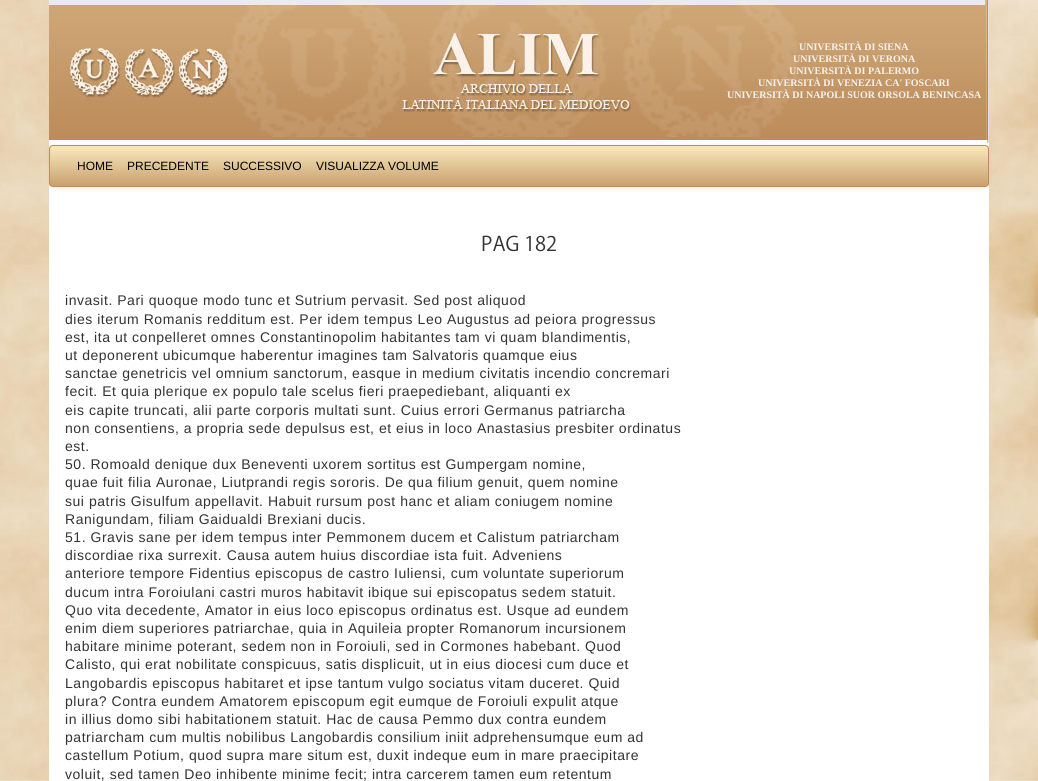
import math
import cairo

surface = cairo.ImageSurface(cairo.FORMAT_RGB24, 1038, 781)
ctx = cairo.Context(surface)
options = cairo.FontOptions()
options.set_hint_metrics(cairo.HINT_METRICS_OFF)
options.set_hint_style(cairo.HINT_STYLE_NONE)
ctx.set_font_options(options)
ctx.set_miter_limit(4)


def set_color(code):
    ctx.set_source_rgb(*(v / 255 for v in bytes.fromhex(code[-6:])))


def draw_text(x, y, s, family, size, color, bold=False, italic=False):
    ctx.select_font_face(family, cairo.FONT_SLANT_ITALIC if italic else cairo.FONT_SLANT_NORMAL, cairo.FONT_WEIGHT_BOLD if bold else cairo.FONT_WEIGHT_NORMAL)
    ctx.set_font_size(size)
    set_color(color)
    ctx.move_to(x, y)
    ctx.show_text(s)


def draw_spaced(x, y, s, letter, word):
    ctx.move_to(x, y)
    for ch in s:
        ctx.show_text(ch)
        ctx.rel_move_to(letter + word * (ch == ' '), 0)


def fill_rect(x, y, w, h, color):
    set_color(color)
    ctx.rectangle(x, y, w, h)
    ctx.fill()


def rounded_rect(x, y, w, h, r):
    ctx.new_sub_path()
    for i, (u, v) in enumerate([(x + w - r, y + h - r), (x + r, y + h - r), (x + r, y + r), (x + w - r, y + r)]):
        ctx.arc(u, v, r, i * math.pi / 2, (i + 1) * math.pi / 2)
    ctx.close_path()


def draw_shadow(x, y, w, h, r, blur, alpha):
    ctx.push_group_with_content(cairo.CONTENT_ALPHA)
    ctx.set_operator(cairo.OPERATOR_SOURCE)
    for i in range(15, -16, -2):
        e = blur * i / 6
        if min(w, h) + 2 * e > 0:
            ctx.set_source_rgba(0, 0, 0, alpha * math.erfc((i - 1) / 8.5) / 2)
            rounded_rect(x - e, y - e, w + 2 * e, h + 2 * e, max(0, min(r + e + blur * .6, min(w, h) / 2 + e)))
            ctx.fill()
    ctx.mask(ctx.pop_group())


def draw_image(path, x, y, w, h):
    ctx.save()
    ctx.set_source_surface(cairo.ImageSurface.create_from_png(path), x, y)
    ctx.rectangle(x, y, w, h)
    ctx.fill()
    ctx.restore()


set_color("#ffffff")
ctx.paint()
draw_image("assets/img1.png", 0, 0, 1038, 781)
fill_rect(49, 144, 940, 637, "#ffffff")
set_color("#000000")
draw_shadow(49, 146, 940, 42, 4, 2, 0.07)
draw_image("assets/img2.png", 49, 0, 940, 144)
draw_text(799, 50, "UNIVERSITÀ DI SIENA", "Liberation Serif", 10, "#f9f2ec", bold=True)
draw_text(793, 62, "UNIVERSITÀ DI VERONA", "Liberation Serif", 10, "#f9f2ec", bold=True)
draw_text(789, 74, "UNIVERSITÀ DI PALERMO", "Liberation Serif", 10, "#f9f2ec", bold=True)
draw_text(758, 86, "UNIVERSITÀ DI VENEZIA CA' FOSCARI", "Liberation Serif", 10, "#f9f2ec", bold=True)
draw_text(727, 98, "UNIVERSITÀ DI NAPOLI SUOR ORSOLA BENINCASA", "Liberation Serif", 10, "#f9f2ec", bold=True)
ctx.save()
rounded_rect(49, 145, 940, 42, 4)
ctx.clip()
gradient = cairo.LinearGradient(519, 146, 519, 186)
gradient.add_color_stop_rgba(0, 0.969, 0.918, 0.741, 1)
gradient.add_color_stop_rgba(1, 0.792, 0.627, 0.435, 1)
ctx.set_source(gradient)
ctx.rectangle(49, 146, 940, 40)
ctx.fill()
ctx.restore()
rounded_rect(49.5, 145.5, 939, 41, 3.5)
set_color("#bd8c5a")
ctx.set_line_width(1)
ctx.stroke()
draw_text(77, 170, "HOME", "Liberation Sans", 12, "#000000")
draw_text(127, 170, "PRECEDENTE", "Liberation Sans", 12, "#000000")
draw_text(223, 170, "SUCCESSIVO", "Liberation Sans", 12, "#000000")
draw_text(316, 170, "VISUALIZZA VOLUME", "Liberation Sans", 12, "#000000")
draw_text(481, 251, "PAG 182", "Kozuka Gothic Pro", 20, "#333333")
ctx.select_font_face("Liberation Sans")
ctx.set_font_size(14)
draw_spaced(65, 305, "invasit. Pari quoque modo tunc et Sutrium pervasit. Sed post aliquod", 0.53, 0)
draw_spaced(65, 324, "dies iterum Romanis redditum est. Per idem tempus Leo Augustus ad peiora progressus", 0.53, 0)
draw_spaced(65, 342, "est, ita ut conpelleret omnes Constantinopolim habitantes tam vi quam blandimentis,", 0.53, 0)
draw_spaced(65, 360, "ut deponerent ubicumque haberentur imagines tam Salvatoris quamque eius", 0.53, 0)
draw_spaced(65, 378, "sanctae genetricis vel omnium sanctorum, easque in medium civitatis incendio concremari", 0.53, 0)
draw_spaced(65, 396, "fecit. Et quia plerique ex populo tale scelus fieri praepediebant, aliquanti ex", 0.53, 0)
draw_spaced(65, 415, "eis capite truncati, alii parte corporis multati sunt. Cuius errori Germanus patriarcha", 0.53, 0)
draw_spaced(65, 433, "non consentiens, a propria sede depulsus est, et eius in loco Anastasius presbiter ordinatus", 0.53, 0)
draw_spaced(65, 451, "est.", 0.53, 0)
draw_spaced(65, 469, "50. Romoald denique dux Beneventi uxorem sortitus est Gumpergam nomine,", 0.53, 0)
draw_spaced(65, 487, "quae fuit filia Auronae, Liutprandi regis sororis. De qua filium genuit, quem nomine", 0.53, 0)
draw_spaced(65, 506, "sui patris Gisulfum appellavit. Habuit rursum post hanc et aliam coniugem nomine", 0.53, 0)
draw_spaced(65, 524, "Ranigundam, filiam Gaidualdi Brexiani ducis.", 0.53, 0)
draw_spaced(65, 542, "51. Gravis sane per idem tempus inter Pemmonem ducem et Calistum patriarcham", 0.53, 0)
draw_spaced(65, 560, "discordiae rixa surrexit. Causa autem huius discordiae ista fuit. Adveniens", 0.53, 0)
draw_spaced(65, 578, "anteriore tempore Fidentius episcopus de castro Iuliensi, cum voluntate superiorum", 0.53, 0)
draw_spaced(65, 597, "ducum intra Foroiulani castri muros habitavit ibique sui episcopatus sedem statuit.", 0.53, 0)
draw_spaced(65, 615, "Quo vita decedente, Amator in eius loco episcopus ordinatus est. Usque ad eundem", 0.53, 0)
draw_spaced(65, 633, "enim diem superiores patriarchae, quia in Aquileia propter Romanorum incursionem", 0.53, 0)
draw_spaced(65, 651, "habitare minime poterant, sedem non in Foroiuli, sed in Cormones habebant. Quod", 0.53, 0)
draw_spaced(65, 669, "Calisto, qui erat nobilitate conspicuus, satis displicuit, ut in eius diocesi cum duce et", 0.53, 0)
draw_spaced(65, 688, "Langobardis episcopus habitaret et ipse tantum vulgo sociatus vitam duceret. Quid", 0.53, 0)
draw_spaced(65, 706, "plura? Contra eundem Amatorem episcopum egit eumque de Foroiuli expulit atque", 0.53, 0)
draw_spaced(65, 724, "in illius domo sibi habitationem statuit. Hac de causa Pemmo dux contra eundem", 0.53, 0)
draw_spaced(65, 742, "patriarcham cum multis nobilibus Langobardis consilium iniit adprehensumque eum ad", 0.53, 0)
draw_spaced(65, 760, "castellum Potium, quod supra mare situm est, duxit indeque eum in mare praecipitare", 0.53, 0)
draw_spaced(65, 779, "voluit, sed tamen Deo inhibente minime fecit; intra carcerem tamen eum retentum", 0.53, 0)
surface.write_to_png("output.png")
